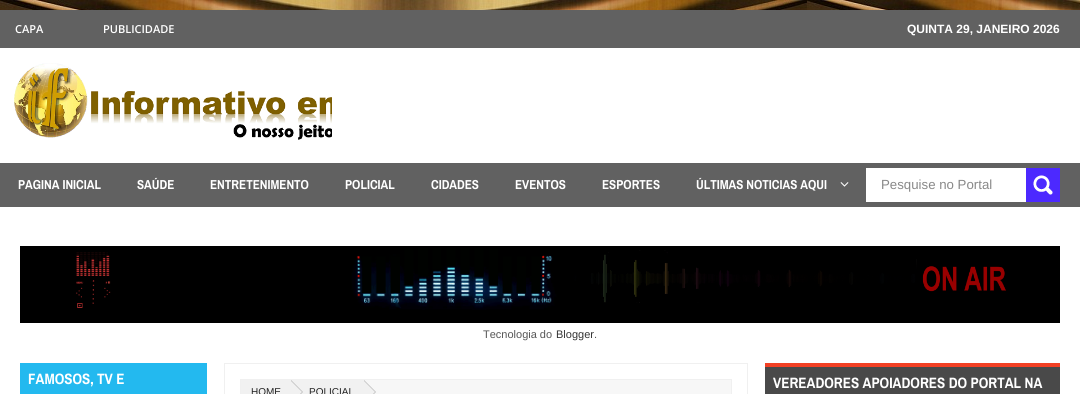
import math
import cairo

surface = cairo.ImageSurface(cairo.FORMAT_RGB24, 1080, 394)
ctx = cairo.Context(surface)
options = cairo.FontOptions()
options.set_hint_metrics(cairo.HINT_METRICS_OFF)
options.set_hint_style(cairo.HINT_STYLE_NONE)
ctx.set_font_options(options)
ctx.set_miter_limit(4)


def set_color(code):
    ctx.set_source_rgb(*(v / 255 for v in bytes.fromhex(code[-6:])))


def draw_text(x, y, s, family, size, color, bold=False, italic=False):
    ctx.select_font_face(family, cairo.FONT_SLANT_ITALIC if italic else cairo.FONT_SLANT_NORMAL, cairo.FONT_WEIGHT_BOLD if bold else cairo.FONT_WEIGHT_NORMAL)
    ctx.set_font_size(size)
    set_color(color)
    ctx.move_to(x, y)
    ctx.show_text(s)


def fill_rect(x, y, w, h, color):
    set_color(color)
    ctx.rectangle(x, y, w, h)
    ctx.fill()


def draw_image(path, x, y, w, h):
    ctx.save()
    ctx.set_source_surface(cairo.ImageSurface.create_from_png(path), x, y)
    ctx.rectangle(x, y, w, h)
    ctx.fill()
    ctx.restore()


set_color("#ffffff")
ctx.paint()
draw_image("assets/img1.png", 0, 0, 1080, 10)
fill_rect(0, 10, 1080, 38, "#616161")
draw_text(15, 33, "CAPA", "Open Sans SemiBold", 11, "#ffffff")
draw_text(103, 33, "PUBLICIDADE", "Open Sans SemiBold", 11, "#ffffff")
draw_text(907, 33, "QUINTA 29, JANEIRO 2026", "Liberation Sans", 12, "#ffffff", bold=True)
draw_image("assets/img2.png", 14, 63, 318, 77)
fill_rect(0, 163, 1080, 44, "#616161")
draw_text(18, 189, "PAGINA INICIAL", "Archivo Narrow", 13, "#ffffff", bold=True)
draw_text(137, 189, "SAÚDE", "Archivo Narrow", 13, "#ffffff", bold=True)
draw_text(210, 189, "ENTRETENIMENTO", "Archivo Narrow", 13, "#ffffff", bold=True)
draw_text(345, 189, "POLICIAL", "Archivo Narrow", 13, "#ffffff", bold=True)
draw_text(431, 189, "CIDADES", "Archivo Narrow", 13, "#ffffff", bold=True)
draw_text(515, 189, "EVENTOS", "Archivo Narrow", 13, "#ffffff", bold=True)
draw_text(602, 189, "ESPORTES", "Archivo Narrow", 13, "#ffffff", bold=True)
draw_text(696, 189, "ÚLTIMAS NOTICIAS AQUI", "Archivo Narrow", 13, "#ffffff", bold=True)
draw_image("assets/img3.png", 840, 182, 9, 5)
fill_rect(866, 168, 160, 34, "#ffffff")
draw_text(881, 189, "Pesquise no Portal", "Liberation Sans", 13.25, "#888888")
fill_rect(1026, 168, 34, 34, "#4c29ff")
draw_image("assets/img4.png", 1033, 175, 20, 20)
draw_image("assets/img5.png", 20, 246, 1040, 77)
draw_text(483, 338, "Tecnologia do", "Liberation Sans", 11, "#565656")
draw_text(556, 338, "Blogger", "Liberation Sans", 11, "#333333")
draw_text(594, 338, ".", "Liberation Sans", 11, "#565656")
fill_rect(20, 363, 187, 31, "#23b9ef")
draw_text(28, 384, "FAMOSOS, TV E", "Archivo Narrow", 15, "#ffffff", bold=True)
fill_rect(765, 363, 295, 4, "#f24024")
fill_rect(765, 367, 295, 27, "#494949")
draw_text(773, 388, "VEREADORES APOIADORES DO PORTAL NA", "Archivo Narrow", 15, "#ffffff", bold=True)
ctx.rectangle(224.5, 363.5, 523, 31)
set_color("#f0f0f0")
ctx.set_line_width(1)
ctx.stroke()
fill_rect(364, 380, 367, 14, "#f7f7f7")
ctx.rectangle(240.5, 379.5, 491, 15)
set_color("#f0f0f0")
ctx.stroke()
fill_rect(241, 380, 123, 14, "#f1f1f1")
draw_text(251, 395, "HOME", "Liberation Sans", 10, "#222222")
set_color("#bbbbbb")
ctx.new_path()
ctx.move_to(291, 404)
ctx.line_to(291, 380)
ctx.line_to(303, 392)
ctx.close_path()
ctx.fill()
set_color("#f1f1f1")
ctx.new_path()
ctx.move_to(290, 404)
ctx.line_to(290, 380)
ctx.line_to(302, 392)
ctx.close_path()
ctx.fill()
draw_text(309, 395, "POLICIAL", "Liberation Sans", 10, "#222222")
set_color("#bbbbbb")
ctx.new_path()
ctx.move_to(364, 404)
ctx.line_to(364, 380)
ctx.line_to(376, 392)
ctx.close_path()
ctx.fill()
set_color("#f1f1f1")
ctx.new_path()
ctx.move_to(363, 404)
ctx.line_to(363, 380)
ctx.line_to(375, 392)
ctx.close_path()
ctx.fill()
surface.write_to_png("output.png")
